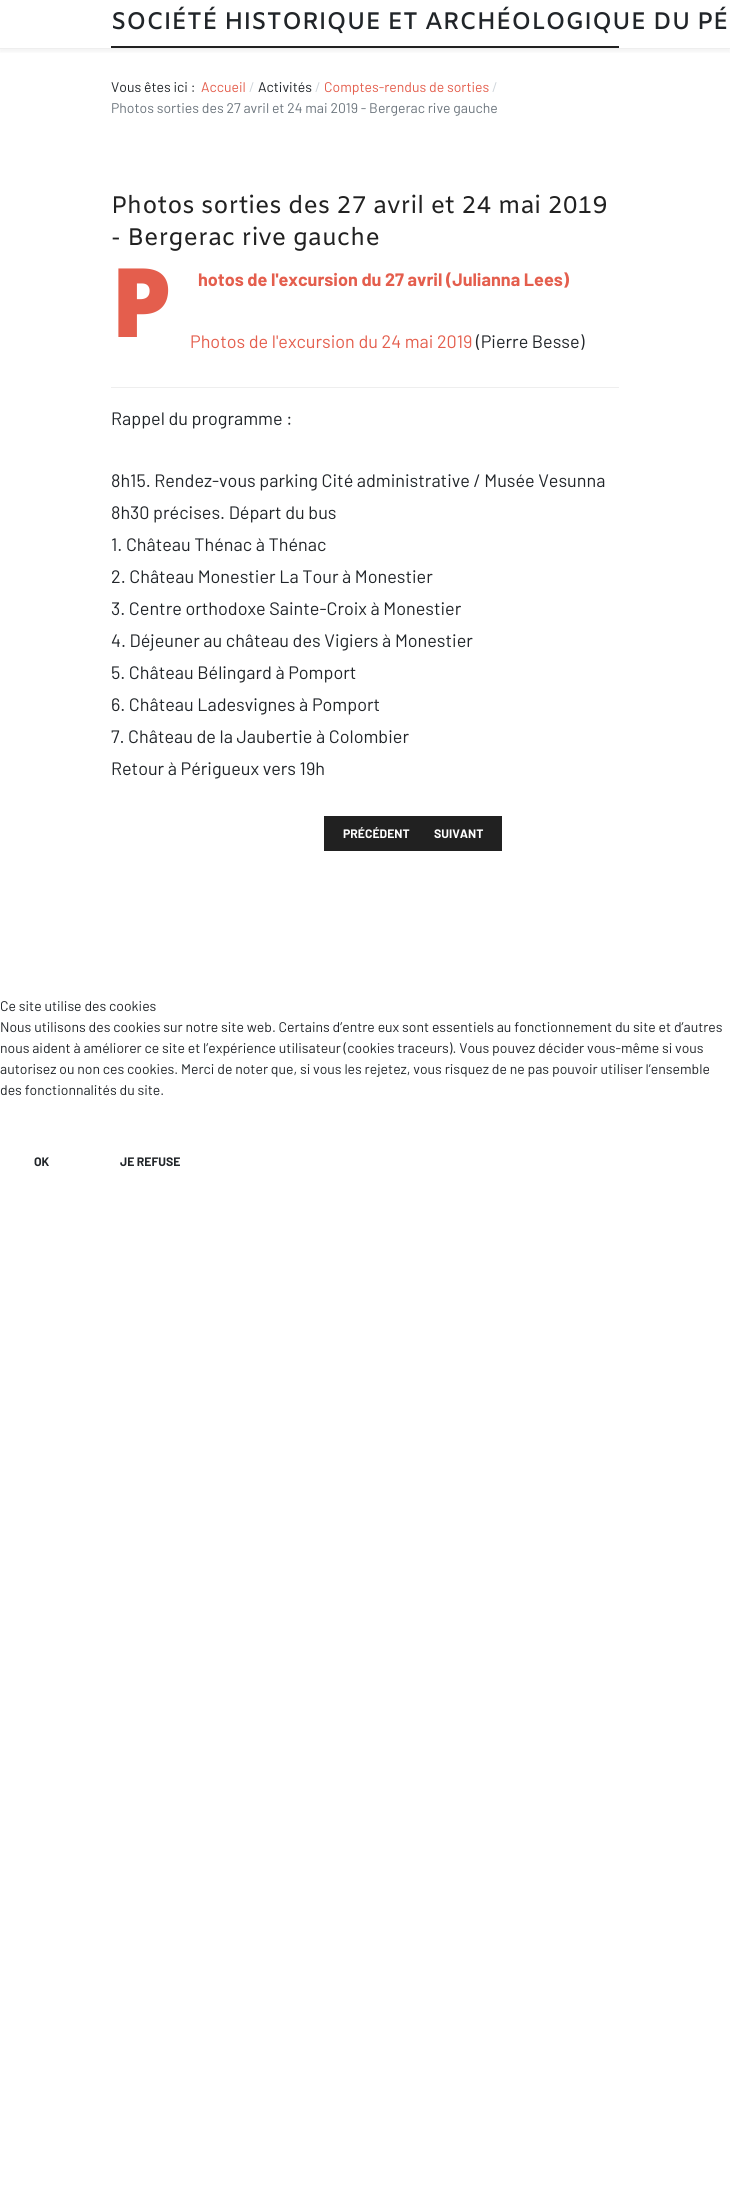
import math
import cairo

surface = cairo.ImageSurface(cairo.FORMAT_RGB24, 730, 2188)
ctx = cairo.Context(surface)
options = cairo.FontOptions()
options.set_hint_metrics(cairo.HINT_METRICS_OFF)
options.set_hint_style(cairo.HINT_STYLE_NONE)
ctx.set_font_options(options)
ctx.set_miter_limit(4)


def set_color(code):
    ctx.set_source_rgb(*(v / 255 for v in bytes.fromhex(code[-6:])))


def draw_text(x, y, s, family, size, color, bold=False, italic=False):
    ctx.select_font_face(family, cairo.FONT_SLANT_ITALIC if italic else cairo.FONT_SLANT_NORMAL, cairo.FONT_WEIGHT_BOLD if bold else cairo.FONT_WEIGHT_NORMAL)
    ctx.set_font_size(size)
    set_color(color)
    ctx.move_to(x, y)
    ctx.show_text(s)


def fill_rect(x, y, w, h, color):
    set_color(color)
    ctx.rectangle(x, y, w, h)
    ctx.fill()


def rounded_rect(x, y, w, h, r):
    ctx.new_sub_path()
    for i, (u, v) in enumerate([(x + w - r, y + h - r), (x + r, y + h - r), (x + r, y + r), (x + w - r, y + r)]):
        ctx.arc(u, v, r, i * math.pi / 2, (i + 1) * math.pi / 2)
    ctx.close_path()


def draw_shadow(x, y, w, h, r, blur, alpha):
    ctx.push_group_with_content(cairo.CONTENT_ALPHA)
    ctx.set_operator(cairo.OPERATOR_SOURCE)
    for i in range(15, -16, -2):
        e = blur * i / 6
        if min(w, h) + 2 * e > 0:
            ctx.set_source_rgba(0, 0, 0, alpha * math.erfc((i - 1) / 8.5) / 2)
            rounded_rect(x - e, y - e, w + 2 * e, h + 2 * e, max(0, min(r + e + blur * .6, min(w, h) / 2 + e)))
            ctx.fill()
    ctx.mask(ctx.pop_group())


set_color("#ffffff")
ctx.paint()
ctx.save()
ctx.rectangle(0, 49, 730, 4)
ctx.clip()
set_color("#000000")
draw_shadow(0, 3, 730, 49, 0, 2.5, 0.05)
ctx.restore()
fill_rect(0, 48, 730, 1, "#eeeeee")
fill_rect(111, 46, 508, 2, "#212121")
draw_text(111, 29, "SOCIÉTÉ HISTORIQUE ET ARCHÉOLOGIQUE DU PÉ", "Amiko SemiBold", 24, "#212529")
draw_text(111, 92, "Vous êtes ici :", "Barlow", 14, "#212529")
draw_text(201, 92, "Accueil", "Barlow", 14, "#e45e4d")
draw_text(249, 92, "/", "Barlow", 14, "#ced4da")
draw_text(258, 92, "Activités", "Barlow", 14, "#212529")
draw_text(315, 92, "/", "Barlow", 14, "#ced4da")
draw_text(324, 92, "Comptes-rendus de sorties", "Barlow", 14, "#e45e4d")
draw_text(492, 92, "/", "Barlow", 14, "#ced4da")
draw_text(111, 113, "Photos sorties des 27 avril et 24 mai 2019 - Bergerac rive gauche", "Barlow", 14, "#6c757d")
draw_text(111, 213, "Photos sorties des 27 avril et 24 mai 2019", "Amiko", 24, "#212121")
draw_text(111, 245, "- Bergerac rive gauche", "Amiko", 24, "#212121")
draw_text(111, 337, "P", "Noto Sans Black", 96, "#e45e4d")
draw_text(198, 286, "hotos de l'excursion du 27 avril (Julianna Lees)", "Barlow", 18, "#e45e4d", bold=True)
draw_text(190, 348, "Photos de l'excursion du 24 mai 2019", "Barlow", 18, "#e45e4d")
draw_text(476, 348, "(Pierre Besse)", "Barlow", 18, "#212529")
fill_rect(111, 387, 508, 1, "#eeeeee")
draw_text(111, 425, "Rappel du programme :", "Barlow", 18, "#212529")
draw_text(111, 487, "8h15. Rendez-vous parking Cité administrative / Musée Vesunna", "Barlow", 18, "#212529")
draw_text(111, 519, "8h30 précises. Départ du bus", "Barlow", 18, "#212529")
draw_text(111, 551, "1. Château Thénac à Thénac", "Barlow", 18, "#212529")
draw_text(111, 583, "2. Château Monestier La Tour à Monestier", "Barlow", 18, "#212529")
draw_text(111, 615, "3. Centre orthodoxe Sainte-Croix à Monestier", "Barlow", 18, "#212529")
draw_text(111, 647, "4. Déjeuner au château des Vigiers à Monestier", "Barlow", 18, "#212529")
draw_text(111, 679, "5. Château Bélingard à Pomport", "Barlow", 18, "#212529")
draw_text(111, 711, "6. Château Ladesvignes à Pomport", "Barlow", 18, "#212529")
draw_text(111, 743, "7. Château de la Jaubertie à Colombier", "Barlow", 18, "#212529")
draw_text(111, 775, "Retour à Périgueux vers 19h", "Barlow", 18, "#212529")
fill_rect(324, 816, 178, 35, "#212121")
draw_text(343, 838, "PRÉCÉDENT", "Barlow", 12.25, "#ffffff", bold=True)
draw_text(434, 838, "SUIVANT", "Barlow", 12.25, "#ffffff", bold=True)
draw_text(0, 1011, "Ce site utilise des cookies", "Barlow", 14, "#212529")
draw_text(0, 1032, "Nous utilisons des cookies sur notre site web. Certains d’entre eux sont essentiels au fonctionnement du site et d’autres", "Barlow", 14, "#212529")
draw_text(0, 1053, "nous aident à améliorer ce site et l’expérience utilisateur (cookies traceurs). Vous pouvez décider vous-même si vous", "Barlow", 14, "#212529")
draw_text(0, 1074, "autorisez ou non ces cookies. Merci de noter que, si vous les rejetez, vous risquez de ne pas pouvoir utiliser l’ensemble", "Barlow", 14, "#212529")
draw_text(0, 1095, "des fonctionnalités du site.", "Barlow", 14, "#212529")
draw_text(34, 1166, "OK", "Barlow", 12.25, "#212529", bold=True)
draw_text(120, 1166, "JE REFUSE", "Barlow", 12.25, "#212529", bold=True)
surface.write_to_png("output.png")
